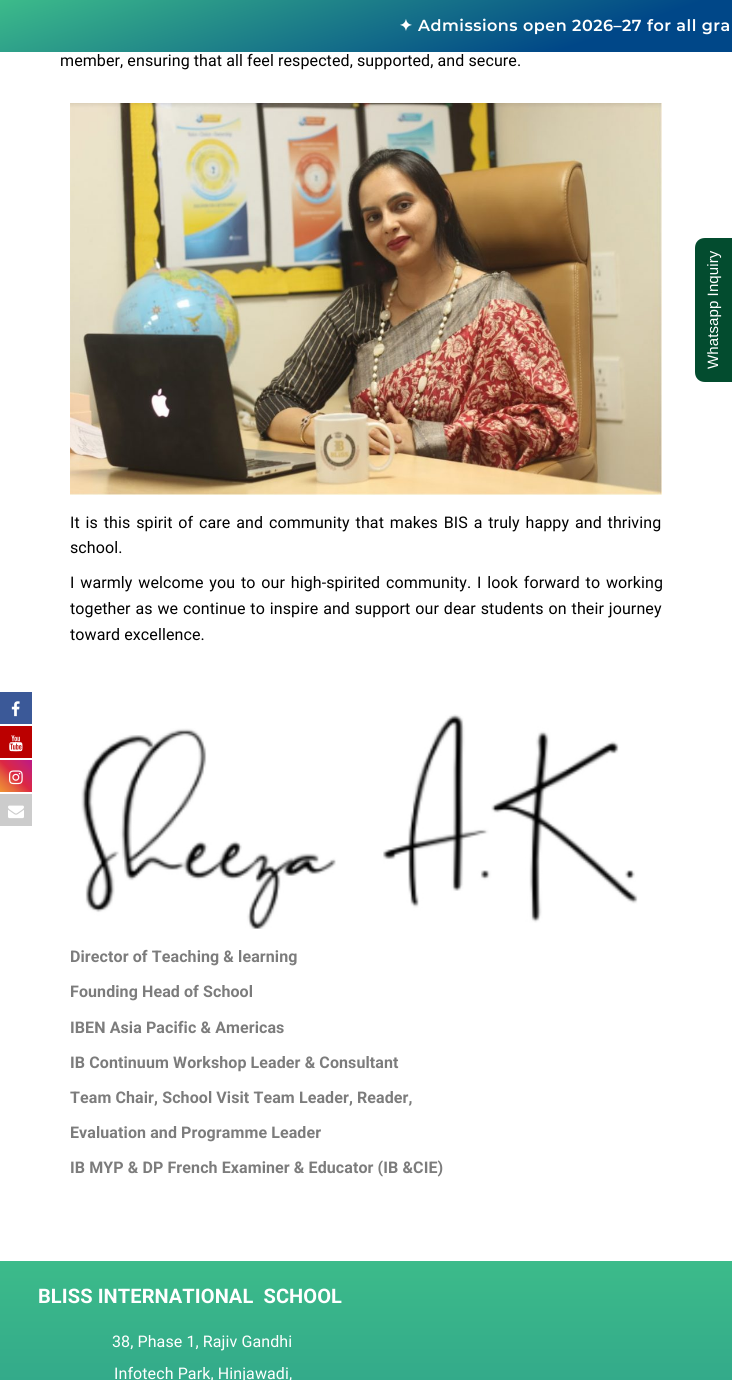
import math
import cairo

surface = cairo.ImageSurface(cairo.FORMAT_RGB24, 732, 1380)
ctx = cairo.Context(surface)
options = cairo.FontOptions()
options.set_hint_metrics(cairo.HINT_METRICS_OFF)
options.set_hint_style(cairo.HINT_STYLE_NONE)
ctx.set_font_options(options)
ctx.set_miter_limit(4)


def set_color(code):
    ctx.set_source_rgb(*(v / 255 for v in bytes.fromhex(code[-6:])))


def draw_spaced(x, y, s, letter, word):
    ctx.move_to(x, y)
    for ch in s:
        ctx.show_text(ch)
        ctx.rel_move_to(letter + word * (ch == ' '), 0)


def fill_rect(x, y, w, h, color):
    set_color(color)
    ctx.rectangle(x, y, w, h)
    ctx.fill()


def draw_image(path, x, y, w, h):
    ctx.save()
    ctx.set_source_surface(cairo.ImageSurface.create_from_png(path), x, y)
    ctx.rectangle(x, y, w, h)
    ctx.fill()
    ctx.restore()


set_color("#ffffff")
ctx.paint()
gradient = cairo.LinearGradient(319, -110, 413, 162)
gradient.add_color_stop_rgba(0, 0.235, 0.733, 0.541, 1)
gradient.add_color_stop_rgba(0.8, 0, 0.278, 0.533, 1)
ctx.set_source(gradient)
ctx.rectangle(0, 0, 732, 52)
ctx.fill()
ctx.select_font_face("DejaVu Sans", cairo.FONT_SLANT_NORMAL, cairo.FONT_WEIGHT_BOLD)
ctx.set_font_size(16)
set_color("#ffffff")
draw_spaced(399, 31, "✦", 0.5, 0)
ctx.select_font_face("Montserrat SemiBold")
draw_spaced(418, 31, "Admissions open 2026–27 for all gra", 0.5, 0)
ctx.select_font_face("Roboto")
set_color("#000000")
draw_spaced(60, 66, "member, ensuring that all feel respected, supported, and secure.", 0.1, 0)
draw_image("assets/img1.png", 70, 103, 592, 392)
draw_spaced(70, 528, "It is this spirit of care and community that makes BIS a truly happy and thriving", 0.1, 1.75)
draw_spaced(70, 553, "school.", 0.1, 0)
draw_spaced(70, 588, "I warmly welcome you to our high-spirited community. I look forward to working", 0.1, 1.75)
draw_spaced(70, 614, "together as we continue to inspire and support our dear students on their journey", 0.1, 0.8)
draw_spaced(70, 640, "toward excellence.", 0.1, 0)
draw_image("assets/img2.png", 81, 714, 557, 215)
ctx.select_font_face("Roboto", cairo.FONT_SLANT_NORMAL, cairo.FONT_WEIGHT_BOLD)
set_color("#7c7c7c")
draw_spaced(70, 962, "Director of Teaching & learning", 0.1, 0)
draw_spaced(70, 997, "Founding Head of School", 0.1, 0)
draw_spaced(70, 1033, "IBEN Asia Pacific & Americas", 0.1, 0)
draw_spaced(70, 1068, "IB Continuum Workshop Leader & Consultant", 0.1, 0)
draw_spaced(70, 1103, "Team Chair, School Visit Team Leader, Reader,", 0.1, 0)
draw_spaced(70, 1138, "Evaluation and Programme Leader", 0.1, 0)
draw_spaced(70, 1173, "IB MYP & DP French Examiner & Educator (IB &CIE)", 0.1, 0)
set_color("#034c2f")
ctx.new_path()
ctx.move_to(695, 372)
ctx.line_to(695, 248)
ctx.curve_to(695, 242, 699, 238, 705, 238)
ctx.line_to(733, 238)
ctx.line_to(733, 382)
ctx.line_to(705, 382)
ctx.curve_to(699, 382, 695, 378, 695, 372)
ctx.close_path()
ctx.fill()
ctx.select_font_face("Liberation Sans")
ctx.set_font_size(15)
set_color("#ffffff")
ctx.save()
ctx.translate(718, 369)
ctx.rotate(-90 * math.pi / 180)
draw_spaced(0, 0, "Whatsapp Inquiry", 0.1, 0)
ctx.restore()
fill_rect(0, 692, 32, 32, "#3b5998")
draw_image("assets/img3.png", 11, 701, 9, 16)
fill_rect(0, 726, 32, 32, "#bb0000")
draw_image("assets/img4.png", 9, 735, 14, 17)
gradient = cairo.LinearGradient(0, 792, 32, 760)
gradient.add_color_stop_rgba(0, 0.941, 0.58, 0.2, 1)
gradient.add_color_stop_rgba(0.25, 0.902, 0.408, 0.235, 1)
gradient.add_color_stop_rgba(0.5, 0.863, 0.153, 0.263, 1)
gradient.add_color_stop_rgba(0.75, 0.8, 0.137, 0.4, 1)
gradient.add_color_stop_rgba(1, 0.737, 0.094, 0.533, 1)
ctx.set_source(gradient)
ctx.rectangle(0, 760, 32, 32)
ctx.fill()
draw_image("assets/img5.png", 9, 770, 14, 15)
fill_rect(0, 794, 32, 32, "#cccccc")
draw_image("assets/img6.png", 8, 805, 16, 14)
gradient = cairo.LinearGradient(366, 1261, 366, 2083)
gradient.add_color_stop_rgba(0, 0.235, 0.733, 0.541, 1)
gradient.add_color_stop_rgba(1, 0, 0.278, 0.533, 1)
ctx.set_source(gradient)
ctx.rectangle(0, 1261, 732, 119)
ctx.fill()
ctx.select_font_face("Roboto", cairo.FONT_SLANT_NORMAL, cairo.FONT_WEIGHT_BOLD)
ctx.set_font_size(20)
set_color("#ffffff")
draw_spaced(38, 1303, "BLISS INTERNATIONAL  SCHOOL", 0.1, 0)
ctx.select_font_face("Roboto")
ctx.set_font_size(16)
draw_spaced(112, 1347, "38, Phase 1, Rajiv Gandhi", 0.1, 0)
draw_spaced(114, 1379, "Infotech Park, Hinjawadi,", 0.1, 0)
surface.write_to_png("output.png")
